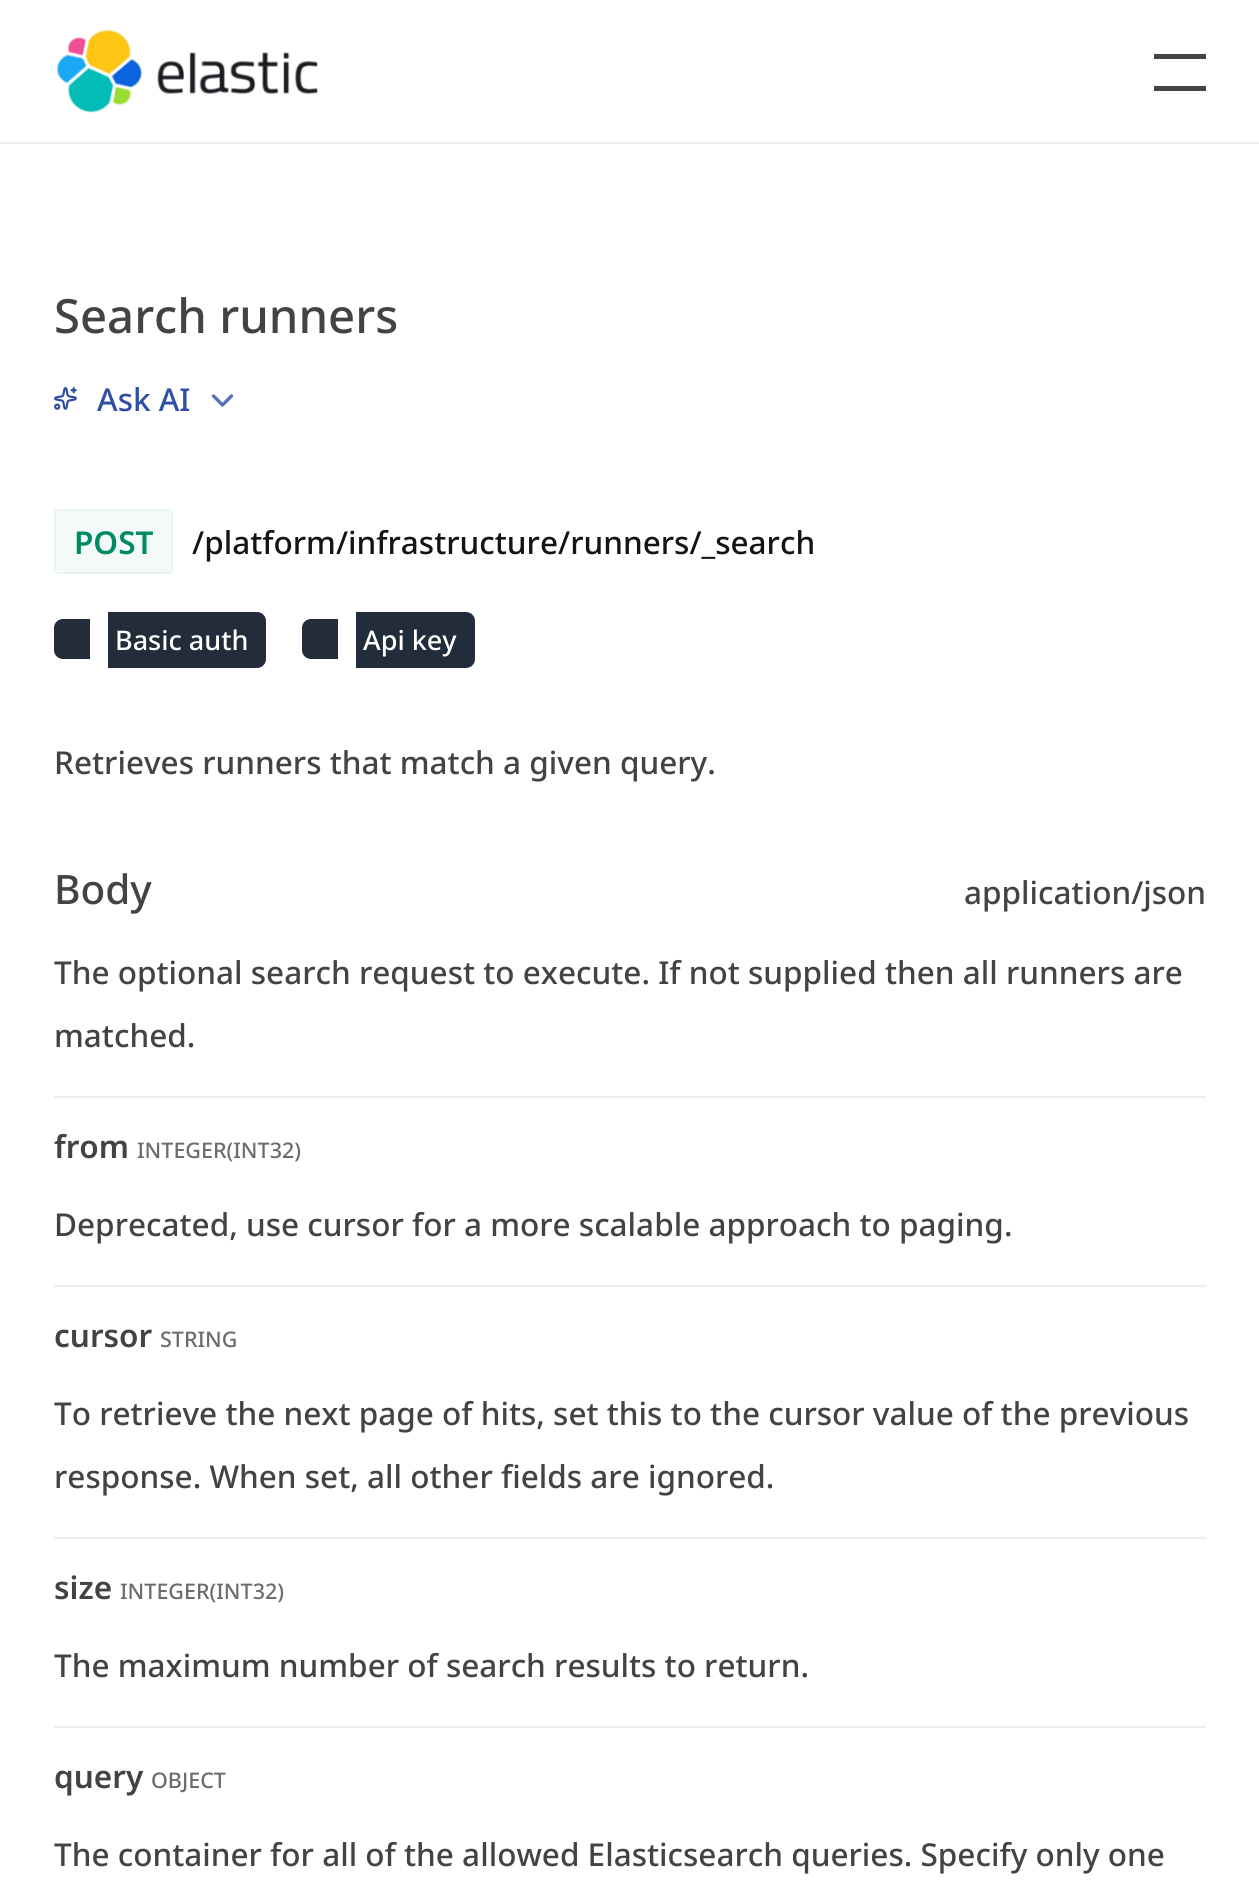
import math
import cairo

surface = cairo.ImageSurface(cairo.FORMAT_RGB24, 1259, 1900)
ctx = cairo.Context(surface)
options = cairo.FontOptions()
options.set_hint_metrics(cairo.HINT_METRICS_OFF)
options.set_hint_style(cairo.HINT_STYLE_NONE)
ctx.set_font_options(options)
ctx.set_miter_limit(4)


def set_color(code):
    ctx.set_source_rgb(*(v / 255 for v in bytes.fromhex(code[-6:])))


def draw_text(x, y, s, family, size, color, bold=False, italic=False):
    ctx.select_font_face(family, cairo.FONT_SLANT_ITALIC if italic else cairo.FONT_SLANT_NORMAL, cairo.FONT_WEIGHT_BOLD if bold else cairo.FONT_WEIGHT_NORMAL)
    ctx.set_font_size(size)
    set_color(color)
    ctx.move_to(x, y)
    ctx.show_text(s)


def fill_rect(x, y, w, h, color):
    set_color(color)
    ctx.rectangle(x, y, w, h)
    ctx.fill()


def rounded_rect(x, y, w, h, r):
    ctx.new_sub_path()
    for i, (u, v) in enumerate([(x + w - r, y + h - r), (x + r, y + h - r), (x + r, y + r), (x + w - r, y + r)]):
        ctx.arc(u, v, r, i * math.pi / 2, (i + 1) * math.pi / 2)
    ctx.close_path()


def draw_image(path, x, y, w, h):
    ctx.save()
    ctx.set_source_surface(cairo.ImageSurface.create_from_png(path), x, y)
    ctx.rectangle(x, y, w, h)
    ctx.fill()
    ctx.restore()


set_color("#ffffff")
ctx.paint()
fill_rect(0, 142, 1259, 2, "#eeeeee")
draw_image("assets/img1.png", 56, 29, 262, 84)
fill_rect(1154, 54, 52, 5, "#424344")
fill_rect(1154, 86, 52, 5, "#424344")
draw_text(54, 333, "Search runners", "Noto Sans Medium", 47.25, "#424344")
draw_image("assets/img2.png", 54, 387, 23, 23)
draw_text(97, 411, "Ask AI", "Noto Sans Medium", 31.5, "#2e4fa3")
ctx.new_path()
ctx.move_to(213.5, 396)
ctx.line_to(222.5, 405)
ctx.line_to(231.5, 396)
set_color("#5872b5")
ctx.set_line_width(3.4)
ctx.set_line_cap(cairo.LINE_CAP_ROUND)
ctx.set_line_join(cairo.LINE_JOIN_ROUND)
ctx.stroke()
set_color("#f4faf8")
rounded_rect(54, 509, 119, 65, 9)
ctx.fill()
ctx.rectangle(55, 510, 117, 63)
ctx.set_source_rgba(0, 0.541, 0.392, 0.06)
ctx.set_line_width(2)
ctx.set_line_cap(cairo.LINE_CAP_BUTT)
ctx.set_line_join(cairo.LINE_JOIN_MITER)
ctx.stroke()
draw_text(74, 554, "POST", "Noto Sans SemiBold", 31.5, "#008a64")
draw_text(192, 554, "/platform/infrastructure/runners/_search", "Noto Sans Medium", 31.5, "#131415")
set_color("#222c3a")
ctx.new_path()
ctx.move_to(108, 612)
ctx.line_to(257, 612)
ctx.curve_to(262, 612, 266, 616, 266, 621)
ctx.line_to(266, 659)
ctx.curve_to(266, 664, 262, 668, 257, 668)
ctx.line_to(108, 668)
ctx.close_path()
ctx.fill()
draw_text(115, 650, "Basic auth", "Noto Sans Medium", 27, "#ffffff")
set_color("#222c3a")
ctx.new_path()
ctx.move_to(63, 619)
ctx.line_to(90, 619)
ctx.line_to(90, 659)
ctx.line_to(63, 659)
ctx.curve_to(58, 659, 54, 655, 54, 650)
ctx.line_to(54, 628)
ctx.curve_to(54, 623, 58, 619, 63, 619)
ctx.close_path()
ctx.fill()
ctx.new_path()
ctx.move_to(356, 612)
ctx.line_to(466, 612)
ctx.curve_to(471, 612, 475, 616, 475, 621)
ctx.line_to(475, 659)
ctx.curve_to(475, 664, 471, 668, 466, 668)
ctx.line_to(356, 668)
ctx.close_path()
ctx.fill()
draw_text(363, 650, "Api key", "Noto Sans Medium", 27, "#ffffff")
set_color("#222c3a")
ctx.new_path()
ctx.move_to(311, 619)
ctx.line_to(338, 619)
ctx.line_to(338, 659)
ctx.line_to(311, 659)
ctx.curve_to(306, 659, 302, 655, 302, 650)
ctx.line_to(302, 628)
ctx.curve_to(302, 623, 306, 619, 311, 619)
ctx.close_path()
ctx.fill()
draw_text(54, 774, "Retrieves runners that match a given query.", "Noto Sans Medium", 31.5, "#424344")
draw_text(54, 904, "Body", "Noto Sans Medium", 40.5, "#424344")
draw_text(54, 984, "The optional search request to execute. If not supplied then all runners are", "Noto Sans Medium", 31.5, "#424344")
draw_text(54, 1047, "matched.", "Noto Sans Medium", 31.5, "#424344")
fill_rect(54, 1096, 1152, 2, "#eeeeee")
fill_rect(54, 1285, 1152, 2, "#eeeeee")
draw_text(54, 1158, "from", "Noto Sans SemiBold", 31.5, "#424344")
draw_text(137, 1158, "INTEGER(INT32)", "Noto Sans Medium", 21.5, "#6a6c6d")
draw_text(54, 1236, "Deprecated, use cursor for a more scalable approach to paging.", "Noto Sans Medium", 31.5, "#424344")
fill_rect(54, 1537, 1152, 2, "#eeeeee")
draw_text(54, 1347, "cursor", "Noto Sans SemiBold", 31.5, "#424344")
draw_text(160, 1347, "STRING", "Noto Sans Medium", 21.5, "#6a6c6d")
draw_text(54, 1425, "To retrieve the next page of hits, set this to the cursor value of the previous", "Noto Sans Medium", 31.5, "#424344")
draw_text(54, 1488, "response. When set, all other fields are ignored.", "Noto Sans Medium", 31.5, "#424344")
fill_rect(54, 1726, 1152, 2, "#eeeeee")
draw_text(54, 1599, "size", "Noto Sans SemiBold", 31.5, "#424344")
draw_text(120, 1599, "INTEGER(INT32)", "Noto Sans Medium", 21.5, "#6a6c6d")
draw_text(54, 1677, "The maximum number of search results to return.", "Noto Sans Medium", 31.5, "#424344")
draw_text(54, 1788, "query", "Noto Sans SemiBold", 31.5, "#424344")
draw_text(151, 1788, "OBJECT", "Noto Sans Medium", 21.5, "#6a6c6d")
draw_text(54, 1866, "The container for all of the allowed Elasticsearch queries. Specify only one", "Noto Sans Medium", 31.5, "#424344")
draw_text(964, 904, "application/json", "Noto Sans Medium", 31.5, "#424344")
surface.write_to_png("output.png")
